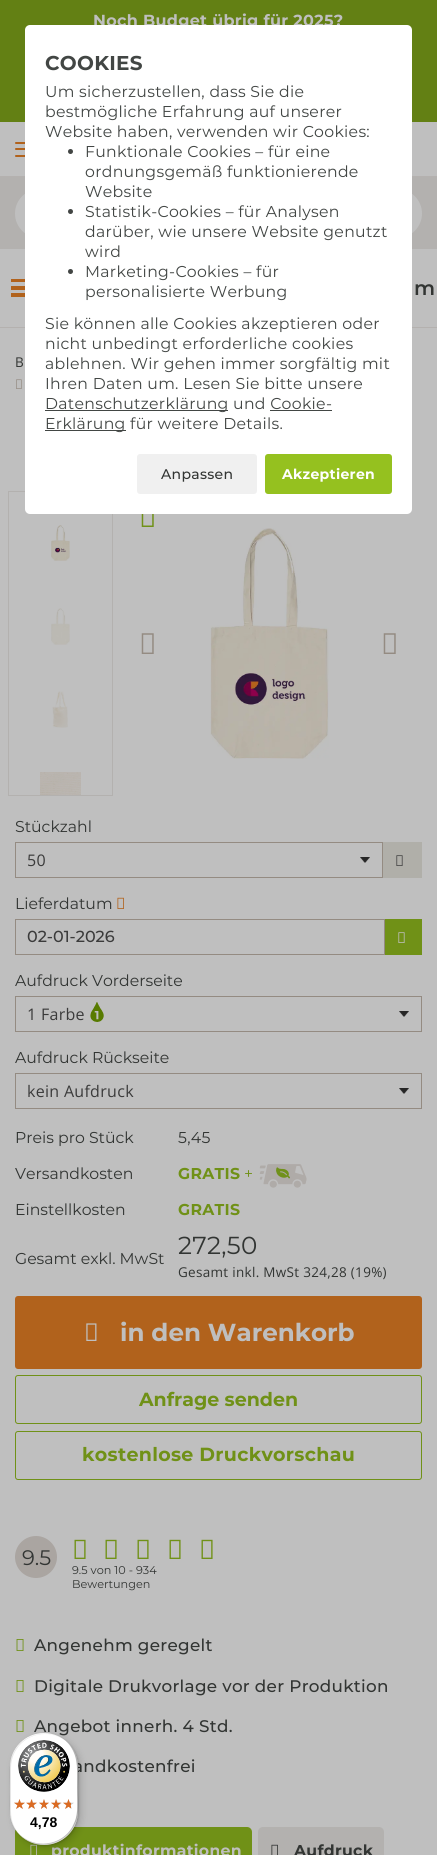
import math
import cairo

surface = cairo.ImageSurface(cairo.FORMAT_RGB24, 437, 1855)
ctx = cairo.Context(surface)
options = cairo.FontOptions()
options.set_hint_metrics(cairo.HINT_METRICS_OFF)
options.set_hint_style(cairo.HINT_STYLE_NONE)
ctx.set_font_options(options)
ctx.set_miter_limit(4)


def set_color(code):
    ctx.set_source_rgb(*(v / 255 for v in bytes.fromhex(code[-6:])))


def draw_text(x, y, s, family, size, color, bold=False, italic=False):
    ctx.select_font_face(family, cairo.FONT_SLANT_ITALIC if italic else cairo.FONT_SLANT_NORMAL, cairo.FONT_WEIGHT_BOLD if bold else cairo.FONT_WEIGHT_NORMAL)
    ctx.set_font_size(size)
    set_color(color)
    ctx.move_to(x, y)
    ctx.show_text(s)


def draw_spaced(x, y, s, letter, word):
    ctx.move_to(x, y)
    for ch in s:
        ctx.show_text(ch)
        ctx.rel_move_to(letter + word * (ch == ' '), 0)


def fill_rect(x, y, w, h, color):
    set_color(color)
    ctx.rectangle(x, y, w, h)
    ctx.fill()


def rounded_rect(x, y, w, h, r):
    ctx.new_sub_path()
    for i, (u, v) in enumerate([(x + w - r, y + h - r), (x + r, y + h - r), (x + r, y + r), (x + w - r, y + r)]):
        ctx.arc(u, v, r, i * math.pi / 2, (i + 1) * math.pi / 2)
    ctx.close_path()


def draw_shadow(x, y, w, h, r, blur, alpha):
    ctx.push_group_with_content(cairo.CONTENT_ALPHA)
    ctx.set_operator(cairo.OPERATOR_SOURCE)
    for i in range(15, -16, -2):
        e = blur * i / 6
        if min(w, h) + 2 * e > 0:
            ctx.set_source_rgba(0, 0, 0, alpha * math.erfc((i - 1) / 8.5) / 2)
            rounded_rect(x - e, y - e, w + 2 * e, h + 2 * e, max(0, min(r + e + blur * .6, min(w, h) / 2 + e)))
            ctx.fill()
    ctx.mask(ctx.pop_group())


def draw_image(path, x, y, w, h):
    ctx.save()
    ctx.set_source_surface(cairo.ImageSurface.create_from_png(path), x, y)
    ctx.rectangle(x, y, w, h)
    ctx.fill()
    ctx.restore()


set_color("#bfbfbf")
ctx.paint()
fill_rect(0, 0, 437, 122, "#638014")
ctx.select_font_face("Montserrat", cairo.FONT_SLANT_NORMAL, cairo.FONT_WEIGHT_BOLD)
ctx.set_font_size(16)
set_color("#bfbfbf")
draw_spaced(93, 26, "Noch Budget übrig für 2025?", 0.3, 0)
set_color("#b1621c")
rounded_rect(15, 142, 20, 2, 1)
ctx.fill()
rounded_rect(15, 148, 20, 2, 1)
ctx.fill()
rounded_rect(15, 155, 20, 2, 1)
ctx.fill()
fill_rect(0, 176, 437, 1, "#b4b1af")
fill_rect(0, 177, 437, 72, "#b3b1af")
set_color("#bfbfbf")
ctx.new_path()
ctx.move_to(39.5, 189)
ctx.line_to(370, 189)
ctx.line_to(370, 238)
ctx.line_to(39.5, 238)
ctx.curve_to(26, 238, 15, 227, 15, 213.5)
ctx.curve_to(15, 200, 26, 189, 39.5, 189)
ctx.close_path()
ctx.fill()
ctx.new_path()
ctx.move_to(370, 189)
ctx.line_to(397.5, 189)
ctx.curve_to(411, 189, 422, 200, 422, 213.5)
ctx.curve_to(422, 227, 411, 238, 397.5, 238)
ctx.line_to(370, 238)
ctx.close_path()
ctx.fill()
fill_rect(0, 327, 437, 1, "#b4b1af")
ctx.rectangle(8.5, 491.5, 104, 304)
set_color("#b3b1af")
ctx.set_line_width(1)
ctx.stroke()
set_color("#ffffff")
rounded_rect(25, 25, 387, 489, 5)
ctx.fill()
ctx.set_font_size(20)
set_color("#424644")
draw_spaced(45, 70, "COOKIES", 0.3, 0)
ctx.select_font_face("Montserrat")
ctx.set_font_size(15.7)
draw_spaced(45, 97, "Um sicherzustellen, dass Sie die", 0.3, 0)
draw_spaced(45, 117, "bestmögliche Erfahrung auf unserer", 0.3, 0)
draw_spaced(45, 137, "Website haben, verwenden wir Cookies:", 0.3, 0)
ctx.new_path()
ctx.arc(70.5, 151.5, 2.5, 0, 2 * math.pi)
ctx.fill()
draw_spaced(85, 157, "Funktionale Cookies – für eine", 0.3, 0)
draw_spaced(85, 177, "ordnungsgemäß funktionierende", 0.3, 0)
draw_spaced(85, 197, "Website", 0.3, 0)
ctx.new_path()
ctx.arc(70.5, 211.5, 2.5, 0, 2 * math.pi)
ctx.fill()
draw_spaced(85, 217, "Statistik-Cookies – für Analysen", 0.3, 0)
draw_spaced(85, 237, "darüber, wie unsere Website genutzt", 0.3, 0)
draw_spaced(85, 257, "wird", 0.3, 0)
ctx.new_path()
ctx.arc(70.5, 271.5, 2.5, 0, 2 * math.pi)
ctx.fill()
draw_spaced(85, 277, "Marketing-Cookies – für", 0.3, 0)
draw_spaced(85, 297, "personalisierte Werbung", 0.3, 0)
draw_spaced(45, 329, "Sie können alle Cookies akzeptieren oder", 0.3, 0)
draw_spaced(45, 349, "nicht unbedingt erforderliche cookies", 0.3, 0)
draw_spaced(45, 369, "ablehnen. Wir gehen immer sorgfältig mit", 0.3, 0)
draw_spaced(45, 389, "Ihren Daten um. Lesen Sie bitte unsere", 0.3, 0)
fill_rect(45, 410, 183, 1, "#424644")
draw_spaced(45, 409, "Datenschutzerklärung und Cookie-", 0.3, 0)
fill_rect(45, 430, 81, 1, "#424644")
draw_spaced(45, 429, "Erklärung für weitere Details.", 0.3, 0)
fill_rect(270, 410, 62, 1, "#424644")
set_color("#f0f0f0")
rounded_rect(137, 454, 120, 40, 3)
ctx.fill()
ctx.select_font_face("Montserrat Medium")
ctx.set_font_size(14)
set_color("#323533")
draw_spaced(161, 479, "Anpassen", 0.3, 0)
set_color("#95c11f")
rounded_rect(265, 454, 127, 40, 3)
ctx.fill()
ctx.select_font_face("Montserrat", cairo.FONT_SLANT_NORMAL, cairo.FONT_WEIGHT_BOLD)
set_color("#ffffff")
draw_spaced(282, 479, "Akzeptieren", 0.3, 0)
fill_rect(11, 279, 14, 3, "#b1621c")
fill_rect(11, 286, 14, 4, "#b1621c")
fill_rect(11, 293, 14, 4, "#b1621c")
ctx.select_font_face("Montserrat SemiBold")
ctx.set_font_size(20)
set_color("#323533")
draw_spaced(414, 295, "m", 0.3, 0)
ctx.select_font_face("Open Sans")
ctx.set_font_size(13.5)
draw_spaced(15, 367, "B", 0.3, 0)
draw_image("assets/img1.png", 16, 379, 6, 10)
draw_image("assets/img2.png", 51, 525, 19, 36)
draw_image("assets/img3.png", 51, 608, 19, 37)
draw_image("assets/img4.png", 52, 691, 16, 37)
draw_image("assets/img5.png", 40, 772, 41, 23)
draw_image("assets/img6.png", 141, 514, 13, 13)
draw_image("assets/img7.png", 141, 633, 13, 21)
draw_image("assets/img8.png", 210, 528, 119, 231)
draw_image("assets/img7.png", 383, 633, 13, 21)
draw_text(15, 832, "Stückzahl", "Montserrat", 15.7, "#323533")
draw_image("assets/img9.png", 360, 857, 10, 6)
ctx.rectangle(15.5, 842.5, 367, 35)
set_color("#948b82")
ctx.stroke()
ctx.select_font_face("Open Sans")
ctx.set_font_size(16)
set_color("#3b3b3b")
draw_spaced(27, 866, "50", 0.3, 0)
fill_rect(383, 842, 39, 36, "#b0afa9")
draw_image("assets/img10.png", 396, 855, 7, 11)
draw_text(15, 909, "Lieferdatum", "Montserrat", 15.7, "#323533")
draw_image("assets/img11.png", 117, 897, 7, 12)
ctx.rectangle(15.5, 919.5, 369, 35)
set_color("#948b82")
ctx.stroke()
draw_text(27, 942, "02-01-2026", "Montserrat Medium", 16, "#3b3b3b")
fill_rect(385, 919, 37, 36, "#709117")
draw_image("assets/img12.png", 398, 932, 7, 11)
draw_text(15, 986, "Aufdruck Vorderseite", "Montserrat", 15.7, "#323533")
draw_image("assets/img9.png", 399, 1011, 10, 6)
ctx.rectangle(15.5, 996.5, 406, 35)
set_color("#948b82")
ctx.stroke()
ctx.select_font_face("Open Sans")
ctx.set_font_size(16)
set_color("#3b3b3b")
draw_spaced(27, 1020, "1 Farbe", 0.3, 0)
draw_image("assets/img13.png", 90, 1002, 14, 20)
draw_text(15, 1063, "Aufdruck Rückseite", "Montserrat", 15.7, "#323533")
draw_image("assets/img9.png", 399, 1088, 10, 6)
ctx.rectangle(15.5, 1073.5, 406, 35)
set_color("#948b82")
ctx.stroke()
ctx.select_font_face("Open Sans")
ctx.set_font_size(16)
set_color("#3b3b3b")
draw_spaced(27, 1097, "kein Aufdruck", 0.3, 0)
draw_text(15, 1143, "Preis pro Stück", "Montserrat", 15.7, "#323533")
draw_spaced(178, 1143, "5,45", 0.3, 0)
draw_text(15, 1179, "Versandkosten", "Montserrat", 15.7, "#323533")
ctx.select_font_face("Montserrat", cairo.FONT_SLANT_NORMAL, cairo.FONT_WEIGHT_BOLD)
set_color("#709117")
draw_spaced(178, 1179, "GRATIS", 0.3, 0)
ctx.select_font_face("Montserrat")
draw_spaced(244, 1179, "+", 0.3, 0)
draw_image("assets/img14.png", 259, 1164, 48, 24)
draw_text(15, 1215, "Einstellkosten", "Montserrat", 15.7, "#323533")
ctx.select_font_face("Montserrat", cairo.FONT_SLANT_NORMAL, cairo.FONT_WEIGHT_BOLD)
set_color("#709117")
draw_spaced(178, 1215, "GRATIS", 0.3, 0)
draw_text(15, 1264, "Gesamt exkl. MwSt", "Montserrat", 15.7, "#323533")
ctx.set_font_size(24.6)
draw_spaced(178, 1254, "272,50", 0.3, 0)
ctx.select_font_face("Open Sans")
ctx.set_font_size(13.5)
draw_spaced(178, 1277, "Gesamt inkl. MwSt 324,28 (19%)", 0.3, 0)
set_color("#b1621c")
rounded_rect(15, 1296, 407, 73, 3)
ctx.fill()
draw_image("assets/img15.png", 86, 1323, 11, 18)
draw_text(120, 1341, "in den Warenkorb", "Montserrat", 24.6, "#bfbfbf", bold=True)
rounded_rect(15.5, 1375.5, 406, 48, 2.5)
set_color("#709117")
ctx.stroke()
draw_text(139, 1406, "Anfrage senden", "Montserrat", 19, "#709117", bold=True)
rounded_rect(15.5, 1431.5, 406, 48, 2.5)
ctx.stroke()
draw_spaced(82, 1461, "kostenlose Druckvorschau", 0.3, 0)
set_color("#aaa5a1")
ctx.new_path()
ctx.arc(36, 1557, 21, 0, 2 * math.pi)
ctx.fill()
draw_text(22, 1565, "9.5", "Montserrat", 21, "#323533")
draw_image("assets/img16.png", 74, 1539, 12, 20)
draw_image("assets/img16.png", 105, 1539, 12, 20)
draw_image("assets/img16.png", 137, 1539, 12, 20)
draw_image("assets/img16.png", 169, 1539, 12, 20)
draw_image("assets/img16.png", 201, 1539, 12, 20)
draw_text(72, 1574, "9.5 von 10 - 934", "Montserrat", 11.25, "#323533")
draw_text(72, 1588, "Bewertungen", "Montserrat", 11.25, "#323533")
draw_image("assets/img17.png", 16, 1639, 8, 12)
ctx.select_font_face("Montserrat Medium")
ctx.set_font_size(16.8)
draw_spaced(34, 1651, "Angenehm geregelt", 0.3, 0)
draw_image("assets/img17.png", 16, 1680, 8, 12)
draw_spaced(34, 1692, "Digitale Drukvorlage vor der Produktion", 0.3, 0)
draw_image("assets/img17.png", 16, 1720, 8, 12)
draw_spaced(34, 1732, "Angebot innerh. 4 Std.", 0.3, 0)
draw_spaced(73, 1772, "andkostenfrei", 0.3, 0)
set_color("#709117")
rounded_rect(15, 1827, 237, 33, 5)
ctx.fill()
draw_image("assets/img18.png", 30, 1844, 7, 11)
ctx.select_font_face("Montserrat", cairo.FONT_SLANT_NORMAL, cairo.FONT_WEIGHT_BOLD)
ctx.set_font_size(15.7)
set_color("#bfbfbf")
draw_spaced(51, 1856, "produktinformationen", 0.3, 0)
set_color("#b3b1af")
rounded_rect(258, 1827, 126, 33, 5)
ctx.fill()
draw_image("assets/img19.png", 271, 1844, 7, 11)
set_color("#323533")
draw_spaced(294, 1856, "Aufdruck", 0.3, 0)
set_color("#000000")
draw_shadow(13, 1736, 68, 112, 34, 4, 0.15)
draw_shadow(11, 1734, 68, 112, 34, 1, 0.15)
set_color("#ffffff")
rounded_rect(10, 1733, 68, 112, 34)
ctx.fill()
ctx.set_source_rgba(0, 0, 0, 0.1)
ctx.new_path()
ctx.move_to(45, 1734)
ctx.curve_to(53, 1734, 61, 1737, 67, 1742)
ctx.curve_to(50, 1727, 22, 1733, 13, 1754)
ctx.curve_to(8, 1764, 10, 1778, 10, 1789)
ctx.curve_to(10, 1804, 7, 1821, 19, 1834)
ctx.curve_to(14, 1828, 11, 1820, 11, 1812)
ctx.line_to(11, 1768)
ctx.curve_to(11, 1749, 26, 1734, 45, 1734)
ctx.close_path()
ctx.fill()
ctx.set_source_rgba(0, 0, 0, 0.2)
ctx.new_path()
ctx.move_to(21, 1836)
ctx.curve_to(38, 1851, 66, 1845, 75, 1824)
ctx.curve_to(80, 1814, 78, 1800, 78, 1789)
ctx.curve_to(78, 1774, 81, 1757, 69, 1744)
ctx.curve_to(79, 1757, 77, 1773, 77, 1788)
ctx.curve_to(77, 1799, 79, 1813, 74, 1823)
ctx.curve_to(66, 1844, 38, 1850, 21, 1836)
ctx.close_path()
ctx.fill()
ctx.set_source_rgba(0.196, 0.196, 0.196, 0.2)
ctx.new_path()
ctx.move_to(17, 1832)
ctx.curve_to(24, 1840, 33, 1845, 44, 1845)
ctx.curve_to(63, 1845, 78, 1830, 78, 1811)
ctx.line_to(78, 1767)
ctx.curve_to(78, 1756, 73, 1747, 65, 1740)
ctx.curve_to(72, 1747, 77, 1756, 77, 1766)
ctx.line_to(77, 1810)
ctx.curve_to(77, 1829, 62, 1844, 43, 1844)
ctx.curve_to(33, 1844, 24, 1839, 17, 1832)
ctx.close_path()
ctx.fill()
ctx.set_source_rgba(1, 1, 1, 0.3)
ctx.new_path()
ctx.move_to(10, 1810)
ctx.curve_to(10, 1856, 78, 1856, 78, 1810)
ctx.curve_to(78, 1829, 62, 1844, 44, 1844)
ctx.curve_to(25, 1844, 10, 1829, 10, 1810)
ctx.close_path()
ctx.fill()
draw_image("assets/img20.png", 18, 1740, 52, 52)
draw_image("assets/img21.png", 14, 1799, 11, 10)
draw_image("assets/img22.png", 27, 1799, 10, 10)
draw_image("assets/img23.png", 39, 1799, 10, 10)
draw_image("assets/img24.png", 51, 1799, 11, 10)
draw_image("assets/img24.png", 63, 1799, 11, 10)
draw_image("assets/img25.png", 14, 1799, 11, 10)
draw_image("assets/img26.png", 26, 1799, 11, 10)
draw_image("assets/img27.png", 39, 1799, 10, 10)
draw_image("assets/img28.png", 51, 1799, 10, 10)
draw_image("assets/img29.png", 63, 1799, 8, 10)
draw_text(30, 1827, "4,78", "Liberation Sans", 14, "#000000", bold=True)
surface.write_to_png("output.png")
